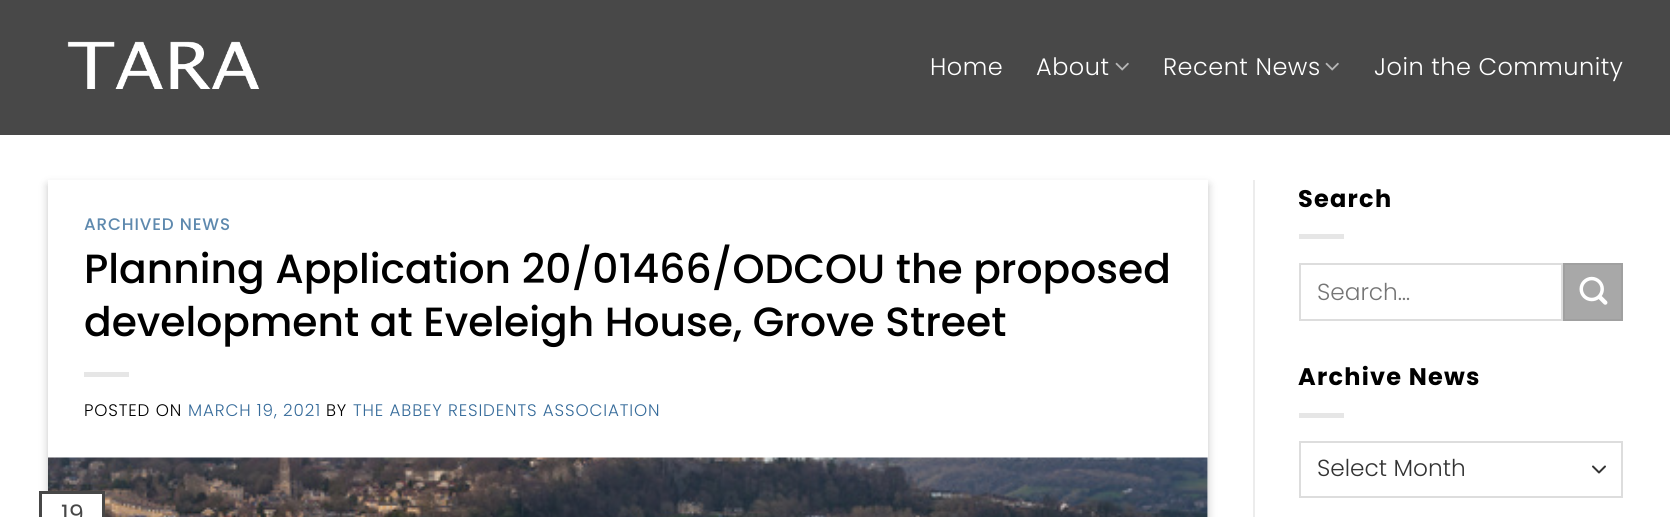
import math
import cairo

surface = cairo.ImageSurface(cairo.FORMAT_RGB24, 1670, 517)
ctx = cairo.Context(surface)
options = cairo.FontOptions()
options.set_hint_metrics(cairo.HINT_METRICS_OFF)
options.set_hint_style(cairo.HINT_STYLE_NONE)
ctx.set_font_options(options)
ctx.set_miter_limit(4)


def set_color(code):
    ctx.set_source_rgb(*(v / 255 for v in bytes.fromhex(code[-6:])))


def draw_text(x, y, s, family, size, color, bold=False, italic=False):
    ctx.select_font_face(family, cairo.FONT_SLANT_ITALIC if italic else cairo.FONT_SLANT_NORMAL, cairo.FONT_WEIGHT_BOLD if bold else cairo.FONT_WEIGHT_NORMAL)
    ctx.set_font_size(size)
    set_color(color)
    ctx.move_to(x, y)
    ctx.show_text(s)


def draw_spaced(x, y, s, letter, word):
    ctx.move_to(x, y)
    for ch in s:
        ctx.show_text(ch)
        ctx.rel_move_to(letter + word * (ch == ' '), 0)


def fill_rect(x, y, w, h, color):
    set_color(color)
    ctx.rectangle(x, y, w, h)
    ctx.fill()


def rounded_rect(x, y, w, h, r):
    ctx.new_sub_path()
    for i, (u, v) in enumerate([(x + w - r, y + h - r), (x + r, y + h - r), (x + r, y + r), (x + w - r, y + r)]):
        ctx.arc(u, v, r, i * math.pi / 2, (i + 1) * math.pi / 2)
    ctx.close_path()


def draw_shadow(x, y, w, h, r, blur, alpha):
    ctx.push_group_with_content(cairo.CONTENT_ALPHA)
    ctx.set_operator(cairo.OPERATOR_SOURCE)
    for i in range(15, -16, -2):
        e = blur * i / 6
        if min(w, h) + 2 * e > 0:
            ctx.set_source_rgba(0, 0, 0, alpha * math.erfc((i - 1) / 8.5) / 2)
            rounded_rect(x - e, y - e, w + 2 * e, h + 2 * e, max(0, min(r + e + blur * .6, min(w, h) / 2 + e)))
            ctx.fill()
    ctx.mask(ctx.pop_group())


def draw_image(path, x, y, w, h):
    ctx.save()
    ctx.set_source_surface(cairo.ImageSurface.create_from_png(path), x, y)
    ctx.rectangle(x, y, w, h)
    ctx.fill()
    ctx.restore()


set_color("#ffffff")
ctx.paint()
fill_rect(0, 0, 1670, 135, "#484848")
draw_image("assets/img1.png", 67, 41, 193, 48)
ctx.select_font_face("Poppins Light")
ctx.set_font_size(24)
set_color("#ffffff")
draw_spaced(930, 75, "Home", 0.5, 0)
draw_spaced(1036, 75, "About", 0.5, 0)
draw_image("assets/img2.png", 1115, 62, 14, 9)
draw_spaced(1163, 75, "Recent News", 0.5, 0)
draw_image("assets/img2.png", 1325, 62, 14, 9)
draw_spaced(1374, 75, "Join the Community", 0.5, 0)
set_color("#000000")
draw_shadow(48, 185, 1160, 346, 0, 4.5, 0.23)
fill_rect(48, 180, 1160, 337, "#ffffff")
ctx.select_font_face("Poppins Medium")
ctx.set_font_size(16.75)
set_color("#5e89ae")
draw_spaced(84, 230, "ARCHIVED NEWS", 0.85, 0)
draw_text(84, 283, "Planning Application 20/01466/ODCOU the proposed", "Poppins Medium", 40.8, "#000000")
draw_text(84, 336, "development at Eveleigh House, Grove Street", "Poppins Medium", 40.8, "#000000")
fill_rect(84, 372, 45, 5, "#e6e6e6")
ctx.select_font_face("Poppins Light")
ctx.set_font_size(16.75)
set_color("#000000")
draw_spaced(84, 416, "POSTED ON", 0.85, 0)
set_color("#366b9a")
draw_spaced(188, 416, "MARCH 19, 2021", 0.85, 0)
set_color("#000000")
draw_spaced(326, 416, "BY", 0.85, 0)
set_color("#366b9a")
draw_spaced(353, 416, "THE ABBEY RESIDENTS ASSOCIATION", 0.85, 0)
draw_image("assets/img3.png", 48, 457, 1160, 60)
set_color("#ffffff")
ctx.rectangle(40.5, 492.5, 63, 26)
ctx.fill_preserve()
set_color("#474747")
ctx.set_line_width(3)
ctx.stroke()
draw_text(61, 522, "19", "Poppins", 24, "#474747")
fill_rect(1253, 180, 2, 337, "#ececec")
ctx.select_font_face("Poppins", cairo.FONT_SLANT_NORMAL, cairo.FONT_WEIGHT_BOLD)
set_color("#000000")
draw_spaced(1298, 207, "Search", 1.25, 0)
fill_rect(1299, 234, 45, 5, "#e6e6e6")
ctx.rectangle(1300, 264, 262, 56)
set_color("#dddddd")
ctx.set_line_width(2)
ctx.stroke()
draw_text(1317, 300, "Search…", "Poppins Light", 23.25, "#757575")
set_color("#a8a8a8")
ctx.rectangle(1564, 264, 58, 56)
ctx.fill_preserve()
set_color("#a0a0a0")
ctx.stroke()
draw_image("assets/img4.png", 1579, 276, 29, 29)
ctx.select_font_face("Poppins", cairo.FONT_SLANT_NORMAL, cairo.FONT_WEIGHT_BOLD)
ctx.set_font_size(24)
set_color("#000000")
draw_spaced(1298, 385, "Archive News", 1.25, 0)
fill_rect(1299, 413, 45, 5, "#e6e6e6")
ctx.new_path()
ctx.move_to(1593, 466.5)
ctx.line_to(1599, 472.5)
ctx.line_to(1605, 466.5)
set_color("#333333")
ctx.set_line_cap(cairo.LINE_CAP_ROUND)
ctx.set_line_join(cairo.LINE_JOIN_ROUND)
ctx.stroke()
ctx.rectangle(1300, 442, 322, 55)
set_color("#dddddd")
ctx.set_line_cap(cairo.LINE_CAP_BUTT)
ctx.set_line_join(cairo.LINE_JOIN_MITER)
ctx.stroke()
draw_text(1317, 476, "Select Month", "Poppins Light", 23.25, "#333333")
surface.write_to_png("output.png")
